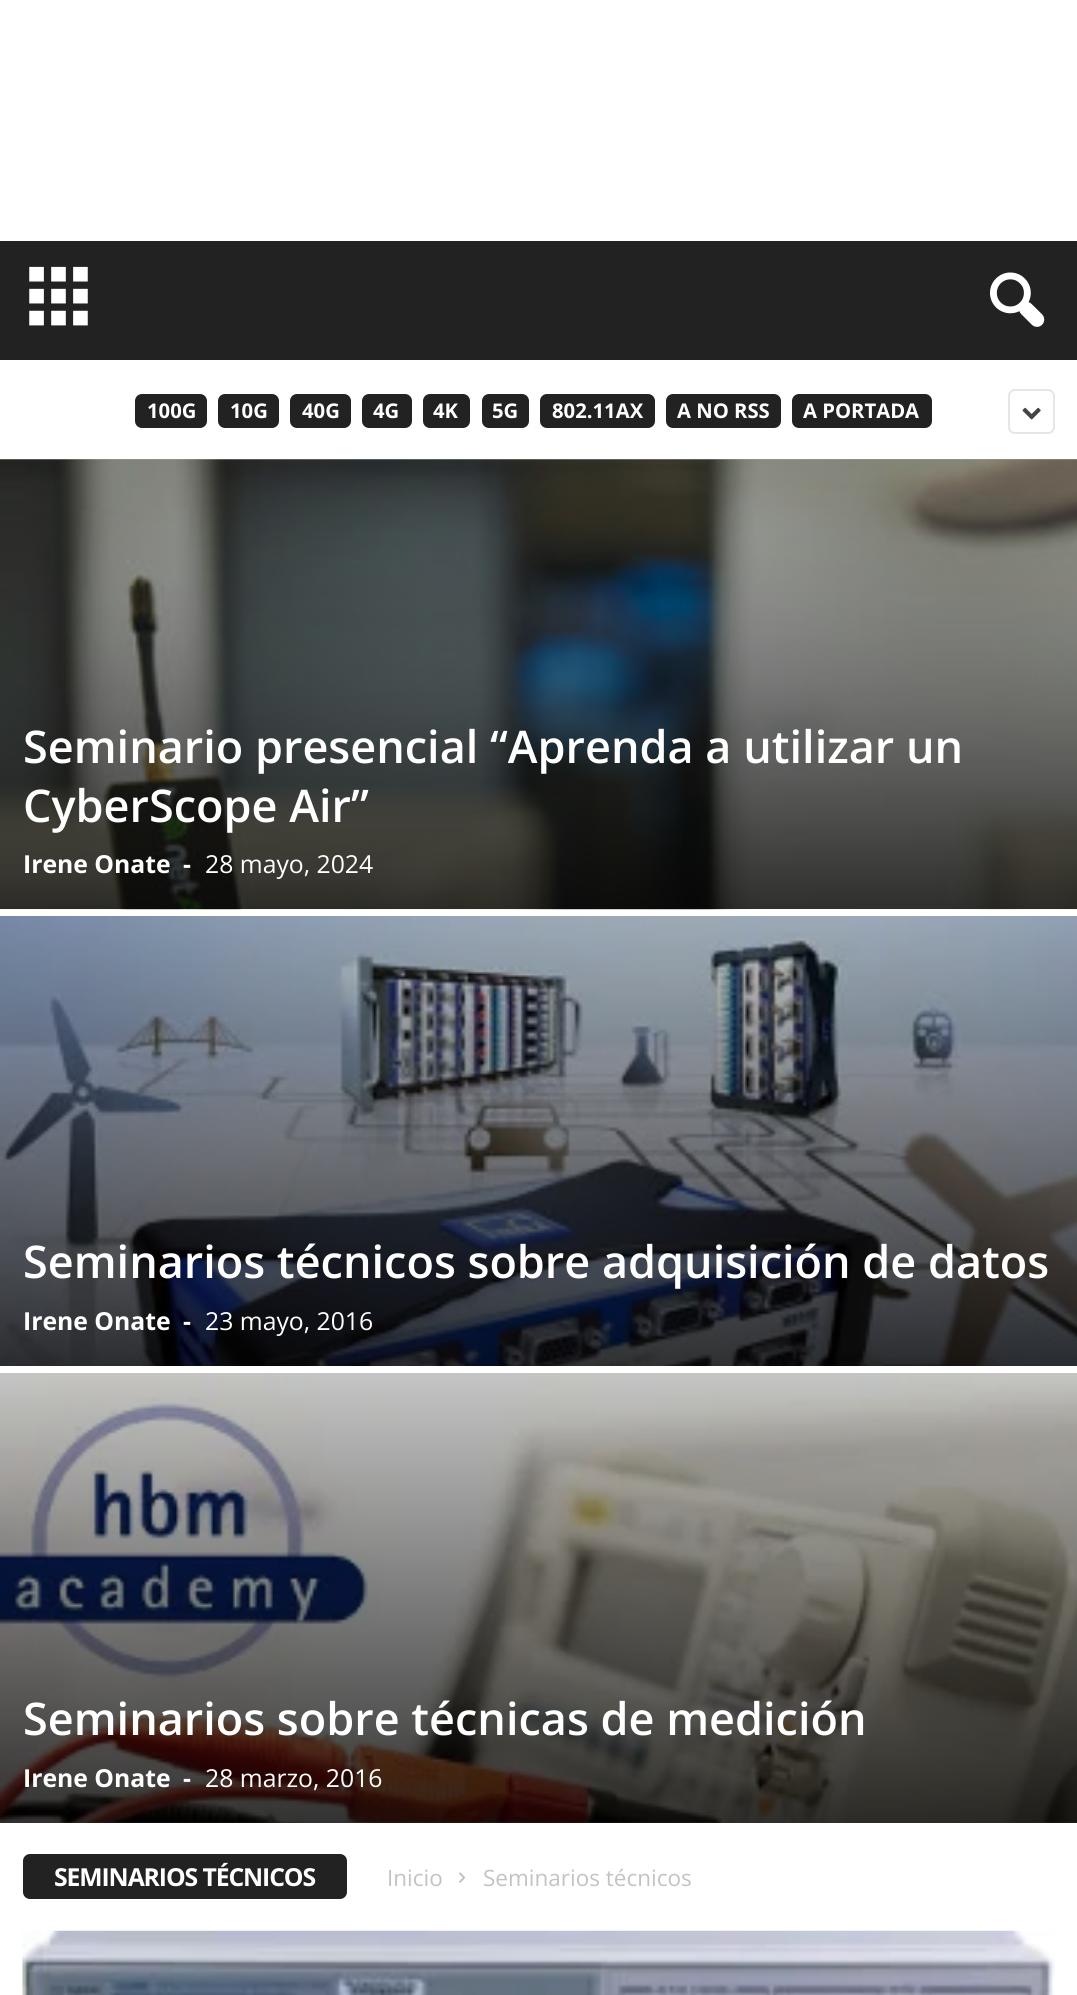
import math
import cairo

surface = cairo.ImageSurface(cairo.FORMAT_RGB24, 1077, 1995)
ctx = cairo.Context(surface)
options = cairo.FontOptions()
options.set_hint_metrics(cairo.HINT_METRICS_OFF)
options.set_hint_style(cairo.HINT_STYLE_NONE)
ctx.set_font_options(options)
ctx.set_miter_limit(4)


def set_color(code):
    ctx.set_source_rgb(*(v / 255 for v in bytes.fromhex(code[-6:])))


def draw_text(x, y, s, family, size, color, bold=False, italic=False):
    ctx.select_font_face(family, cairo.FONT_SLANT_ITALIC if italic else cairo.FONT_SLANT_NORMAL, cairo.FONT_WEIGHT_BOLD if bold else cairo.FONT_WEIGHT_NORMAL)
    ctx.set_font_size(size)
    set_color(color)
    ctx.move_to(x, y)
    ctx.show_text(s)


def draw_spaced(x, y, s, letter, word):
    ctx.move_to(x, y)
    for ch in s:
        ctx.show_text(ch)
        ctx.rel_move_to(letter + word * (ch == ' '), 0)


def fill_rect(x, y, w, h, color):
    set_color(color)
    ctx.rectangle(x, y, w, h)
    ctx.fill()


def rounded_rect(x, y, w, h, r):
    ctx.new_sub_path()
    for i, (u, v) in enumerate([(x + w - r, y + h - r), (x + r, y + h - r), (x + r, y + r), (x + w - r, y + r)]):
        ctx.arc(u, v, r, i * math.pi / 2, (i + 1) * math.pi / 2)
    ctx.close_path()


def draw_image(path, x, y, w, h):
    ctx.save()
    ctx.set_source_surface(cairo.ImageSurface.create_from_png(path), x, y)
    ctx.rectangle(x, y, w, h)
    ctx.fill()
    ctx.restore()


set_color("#ffffff")
ctx.paint()
fill_rect(0, 241, 1077, 119, "#222222")
draw_image("assets/img1.png", 29, 266, 59, 60)
draw_image("assets/img2.png", 990, 272, 55, 55)
rounded_rect(135, 394, 72, 34, 7)
ctx.fill()
draw_text(147, 418, "100G", "Open Sans", 20.25, "#ffffff", bold=True)
set_color("#222222")
rounded_rect(218, 394, 61, 34, 7)
ctx.fill()
draw_text(230, 418, "10G", "Open Sans", 20.25, "#ffffff", bold=True)
set_color("#222222")
rounded_rect(290, 394, 61, 34, 7)
ctx.fill()
draw_text(302, 418, "40G", "Open Sans", 20.25, "#ffffff", bold=True)
set_color("#222222")
rounded_rect(362, 394, 50, 34, 7)
ctx.fill()
draw_text(373, 418, "4G", "Open Sans", 20.25, "#ffffff", bold=True)
set_color("#222222")
rounded_rect(423, 394, 47, 34, 7)
ctx.fill()
draw_text(433, 418, "4K", "Open Sans", 20.25, "#ffffff", bold=True)
set_color("#222222")
rounded_rect(482, 394, 47, 34, 7)
ctx.fill()
draw_text(492, 418, "5G", "Open Sans", 20.25, "#ffffff", bold=True)
set_color("#222222")
rounded_rect(540, 394, 115, 34, 7)
ctx.fill()
draw_text(552, 418, "802.11AX", "Open Sans", 20.25, "#ffffff", bold=True)
set_color("#222222")
rounded_rect(666, 394, 115, 34, 7)
ctx.fill()
draw_text(677, 418, "A NO RSS", "Open Sans", 20.25, "#ffffff", bold=True)
set_color("#222222")
rounded_rect(792, 394, 140, 34, 7)
ctx.fill()
draw_text(803, 418, "A PORTADA", "Open Sans", 20.25, "#ffffff", bold=True)
rounded_rect(1009, 390, 45, 43, 6)
set_color("#e6e6e6")
ctx.stroke()
draw_image("assets/img3.png", 1022, 407, 19, 13)
fill_rect(0, 459, 1077, 1, "#cccccc")
draw_image("assets/img4.png", 0, 459, 1077, 451)
gradient = cairo.LinearGradient(539, 279, 539, 909)
gradient.add_color_stop_rgba(0, 0, 0, 0, 0)
gradient.add_color_stop_rgba(1, 0, 0, 0, 0.8)
ctx.set_source(gradient)
ctx.rectangle(0, 459, 1077, 450)
ctx.fill()
draw_text(23, 763, "Seminario presencial “Aprenda a utilizar un", "Open Sans SemiBold", 45, "#ffffff")
draw_text(23, 822, "CyberScope Air”", "Open Sans SemiBold", 45, "#ffffff")
draw_text(23, 873, "Irene Onate", "Open Sans", 24.75, "#ffffff", bold=True)
draw_text(183, 873, "-", "Open Sans", 24.75, "#ffffff", bold=True)
draw_text(205, 873, "28 mayo, 2024", "Open Sans", 24.75, "#ffffff")
draw_image("assets/img5.png", 0, 916, 1077, 450)
draw_text(23, 1278, "Seminarios técnicos sobre adquisición de datos", "Open Sans SemiBold", 45, "#ffffff")
draw_text(23, 1330, "Irene Onate", "Open Sans", 24.75, "#ffffff", bold=True)
draw_text(183, 1330, "-", "Open Sans", 24.75, "#ffffff", bold=True)
draw_text(205, 1330, "23 mayo, 2016", "Open Sans", 24.75, "#ffffff")
draw_image("assets/img6.png", 0, 1373, 1077, 450)
gradient = cairo.LinearGradient(539, 1193, 539, 1823)
gradient.add_color_stop_rgba(0, 0, 0, 0, 0)
gradient.add_color_stop_rgba(1, 0, 0, 0, 0.8)
ctx.set_source(gradient)
ctx.rectangle(0, 1373, 1077, 450)
ctx.fill()
draw_text(23, 1735, "Seminarios sobre técnicas de medición", "Open Sans SemiBold", 45, "#ffffff")
draw_text(23, 1787, "Irene Onate", "Open Sans", 24.75, "#ffffff", bold=True)
draw_text(183, 1787, "-", "Open Sans", 24.75, "#ffffff", bold=True)
draw_text(205, 1787, "28 marzo, 2016", "Open Sans", 24.75, "#ffffff")
set_color("#222222")
rounded_rect(23, 1854, 324, 45, 7)
ctx.fill()
ctx.select_font_face("Open Sans", cairo.FONT_SLANT_NORMAL, cairo.FONT_WEIGHT_BOLD)
set_color("#ffffff")
draw_spaced(54, 1886, "SEMINARIOS TÉCNICOS", -1.1, 0)
draw_text(387, 1886, "Inicio", "Open Sans", 22.5, "#c3c3c3")
draw_image("assets/img7.png", 459, 1872, 6, 11)
draw_text(483, 1886, "Seminarios técnicos", "Open Sans", 22.5, "#c3c3c3")
draw_image("assets/img8.png", 22, 1930, 1033, 65)
surface.write_to_png("output.png")
